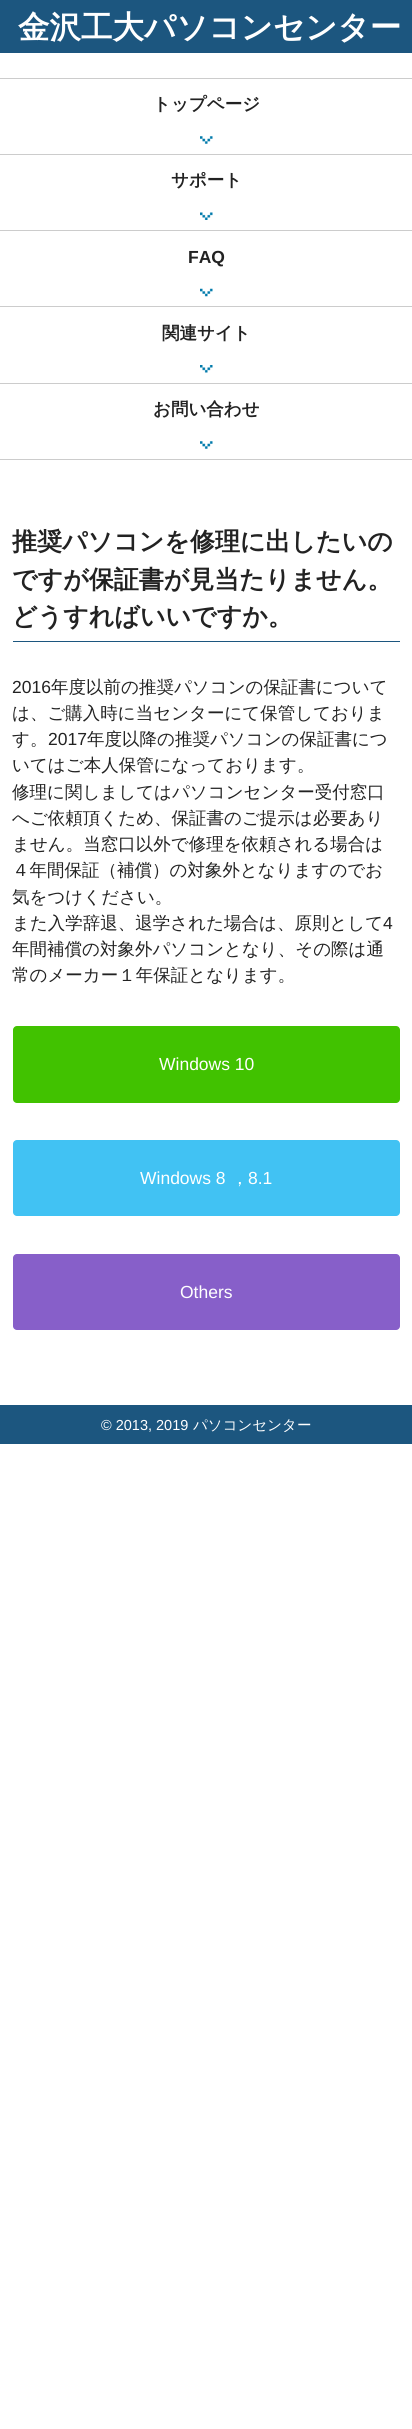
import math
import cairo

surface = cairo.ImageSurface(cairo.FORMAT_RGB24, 412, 2429)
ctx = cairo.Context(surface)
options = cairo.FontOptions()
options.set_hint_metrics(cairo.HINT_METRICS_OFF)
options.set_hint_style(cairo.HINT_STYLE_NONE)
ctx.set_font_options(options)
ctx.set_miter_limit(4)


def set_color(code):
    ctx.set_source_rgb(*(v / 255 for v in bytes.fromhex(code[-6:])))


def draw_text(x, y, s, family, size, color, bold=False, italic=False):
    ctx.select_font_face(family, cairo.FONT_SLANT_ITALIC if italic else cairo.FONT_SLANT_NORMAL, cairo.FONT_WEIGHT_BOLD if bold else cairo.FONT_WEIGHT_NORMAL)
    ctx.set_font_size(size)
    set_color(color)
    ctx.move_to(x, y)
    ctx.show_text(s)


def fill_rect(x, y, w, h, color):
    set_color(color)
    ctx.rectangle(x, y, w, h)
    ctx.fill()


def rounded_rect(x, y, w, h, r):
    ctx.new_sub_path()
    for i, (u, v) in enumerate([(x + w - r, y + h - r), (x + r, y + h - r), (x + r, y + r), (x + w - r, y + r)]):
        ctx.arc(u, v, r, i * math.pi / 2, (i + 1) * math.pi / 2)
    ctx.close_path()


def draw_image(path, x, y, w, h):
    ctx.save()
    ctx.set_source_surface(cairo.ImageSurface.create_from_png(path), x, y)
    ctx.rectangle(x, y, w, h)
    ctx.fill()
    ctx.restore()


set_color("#ffffff")
ctx.paint()
fill_rect(0, 0, 412, 53, "#1c567f")
draw_text(18, 38, "金沢工大パソコンセンター", "WenQuanYi Zen Hei", 31.5, "#ffffff", bold=True)
fill_rect(0, 78, 412, 1, "#cccccc")
fill_rect(0, 154, 412, 1, "#cccccc")
draw_image("assets/img1.png", 200, 136, 13, 8)
draw_text(153, 110, "トップページ", "WenQuanYi Zen Hei", 17.5, "#222222", bold=True)
fill_rect(0, 230, 412, 1, "#cccccc")
draw_image("assets/img2.png", 200, 212, 13, 8)
draw_text(171, 186, "サポート", "WenQuanYi Zen Hei", 17.5, "#222222", bold=True)
fill_rect(0, 306, 412, 1, "#cccccc")
draw_image("assets/img3.png", 200, 288, 13, 9)
draw_text(188, 263, "FAQ", "Liberation Sans", 17.5, "#222222", bold=True)
fill_rect(0, 383, 412, 1, "#cccccc")
draw_image("assets/img4.png", 200, 365, 13, 8)
draw_text(162, 339, "関連サイト", "WenQuanYi Zen Hei", 17.5, "#222222", bold=True)
fill_rect(0, 459, 412, 1, "#cccccc")
draw_image("assets/img1.png", 200, 441, 13, 8)
draw_text(153, 415, "お問い合わせ", "WenQuanYi Zen Hei", 17.5, "#222222", bold=True)
fill_rect(13, 641, 387, 1, "#1c567f")
draw_text(12, 550, "推奨パソコンを修理に出したいの", "WenQuanYi Zen Hei", 25, "#222222", bold=True)
draw_text(12, 588, "ですが保証書が見当たりません。", "WenQuanYi Zen Hei", 25, "#222222", bold=True)
draw_text(12, 625, "どうすればいいですか。", "WenQuanYi Zen Hei", 25, "#222222", bold=True)
draw_text(12, 693, "2016", "Liberation Sans", 17.5, "#222222")
draw_text(51, 693, "年度以前の推奨パソコンの保証書について", "WenQuanYi Zen Hei Medium", 17.5, "#222222")
draw_text(12, 719, "は、ご購入時に当センターにて保管しておりま", "WenQuanYi Zen Hei Medium", 17.5, "#222222")
draw_text(12, 745, "す。", "WenQuanYi Zen Hei Medium", 17.5, "#222222")
draw_text(48, 745, "2017", "Liberation Sans", 17.5, "#222222")
draw_text(87, 745, "年度以降の推奨パソコンの保証書につ", "WenQuanYi Zen Hei Medium", 17.5, "#222222")
draw_text(12, 771, "いてはご本人保管になっております。", "WenQuanYi Zen Hei Medium", 17.5, "#222222")
draw_text(12, 798, "修理に関しましてはパソコンセンター受付窓口", "WenQuanYi Zen Hei Medium", 17.5, "#222222")
draw_text(12, 824, "へご依頼頂くため、保証書のご提示は必要あり", "WenQuanYi Zen Hei Medium", 17.5, "#222222")
draw_text(12, 850, "ません。当窓口以外で修理を依頼される場合は", "WenQuanYi Zen Hei Medium", 17.5, "#222222")
draw_text(12, 876, "４年間保証（補償）の対象外となりますのでお", "WenQuanYi Zen Hei Medium", 17.5, "#222222")
draw_text(12, 903, "気をつけください。", "WenQuanYi Zen Hei Medium", 17.5, "#222222")
draw_text(12, 929, "また入学辞退、退学された場合は、原則として", "WenQuanYi Zen Hei Medium", 17.5, "#222222")
draw_text(383, 929, "4", "Liberation Sans", 17.5, "#222222")
draw_text(12, 955, "年間補償の対象外パソコンとなり、その際は通", "WenQuanYi Zen Hei Medium", 17.5, "#222222")
draw_text(12, 981, "常のメーカー１年保証となります。", "WenQuanYi Zen Hei Medium", 17.5, "#222222")
set_color("#41c200")
rounded_rect(13, 1026, 387, 77, 4)
ctx.fill()
draw_text(159, 1070, "Windows 10", "Liberation Sans", 17.5, "#ffffff")
set_color("#41c2f3")
rounded_rect(13, 1140, 387, 76, 4)
ctx.fill()
draw_text(140, 1184, "Windows 8", "Liberation Sans", 17.5, "#ffffff")
draw_text(231, 1184, "，", "WenQuanYi Zen Hei Medium", 17.5, "#ffffff")
draw_text(248, 1184, "8.1", "Liberation Sans", 17.5, "#ffffff")
set_color("#875fc9")
rounded_rect(13, 1254, 387, 76, 4)
ctx.fill()
draw_text(180, 1298, "Others", "Liberation Sans", 17.5, "#ffffff")
fill_rect(0, 1405, 412, 39, "#1c567f")
draw_text(101, 1430, "© 2013, 2019", "Liberation Sans", 14.5, "#ffffff")
draw_text(193, 1430, "パソコンセンター", "WenQuanYi Zen Hei Medium", 14.5, "#ffffff")
surface.write_to_png("output.png")
